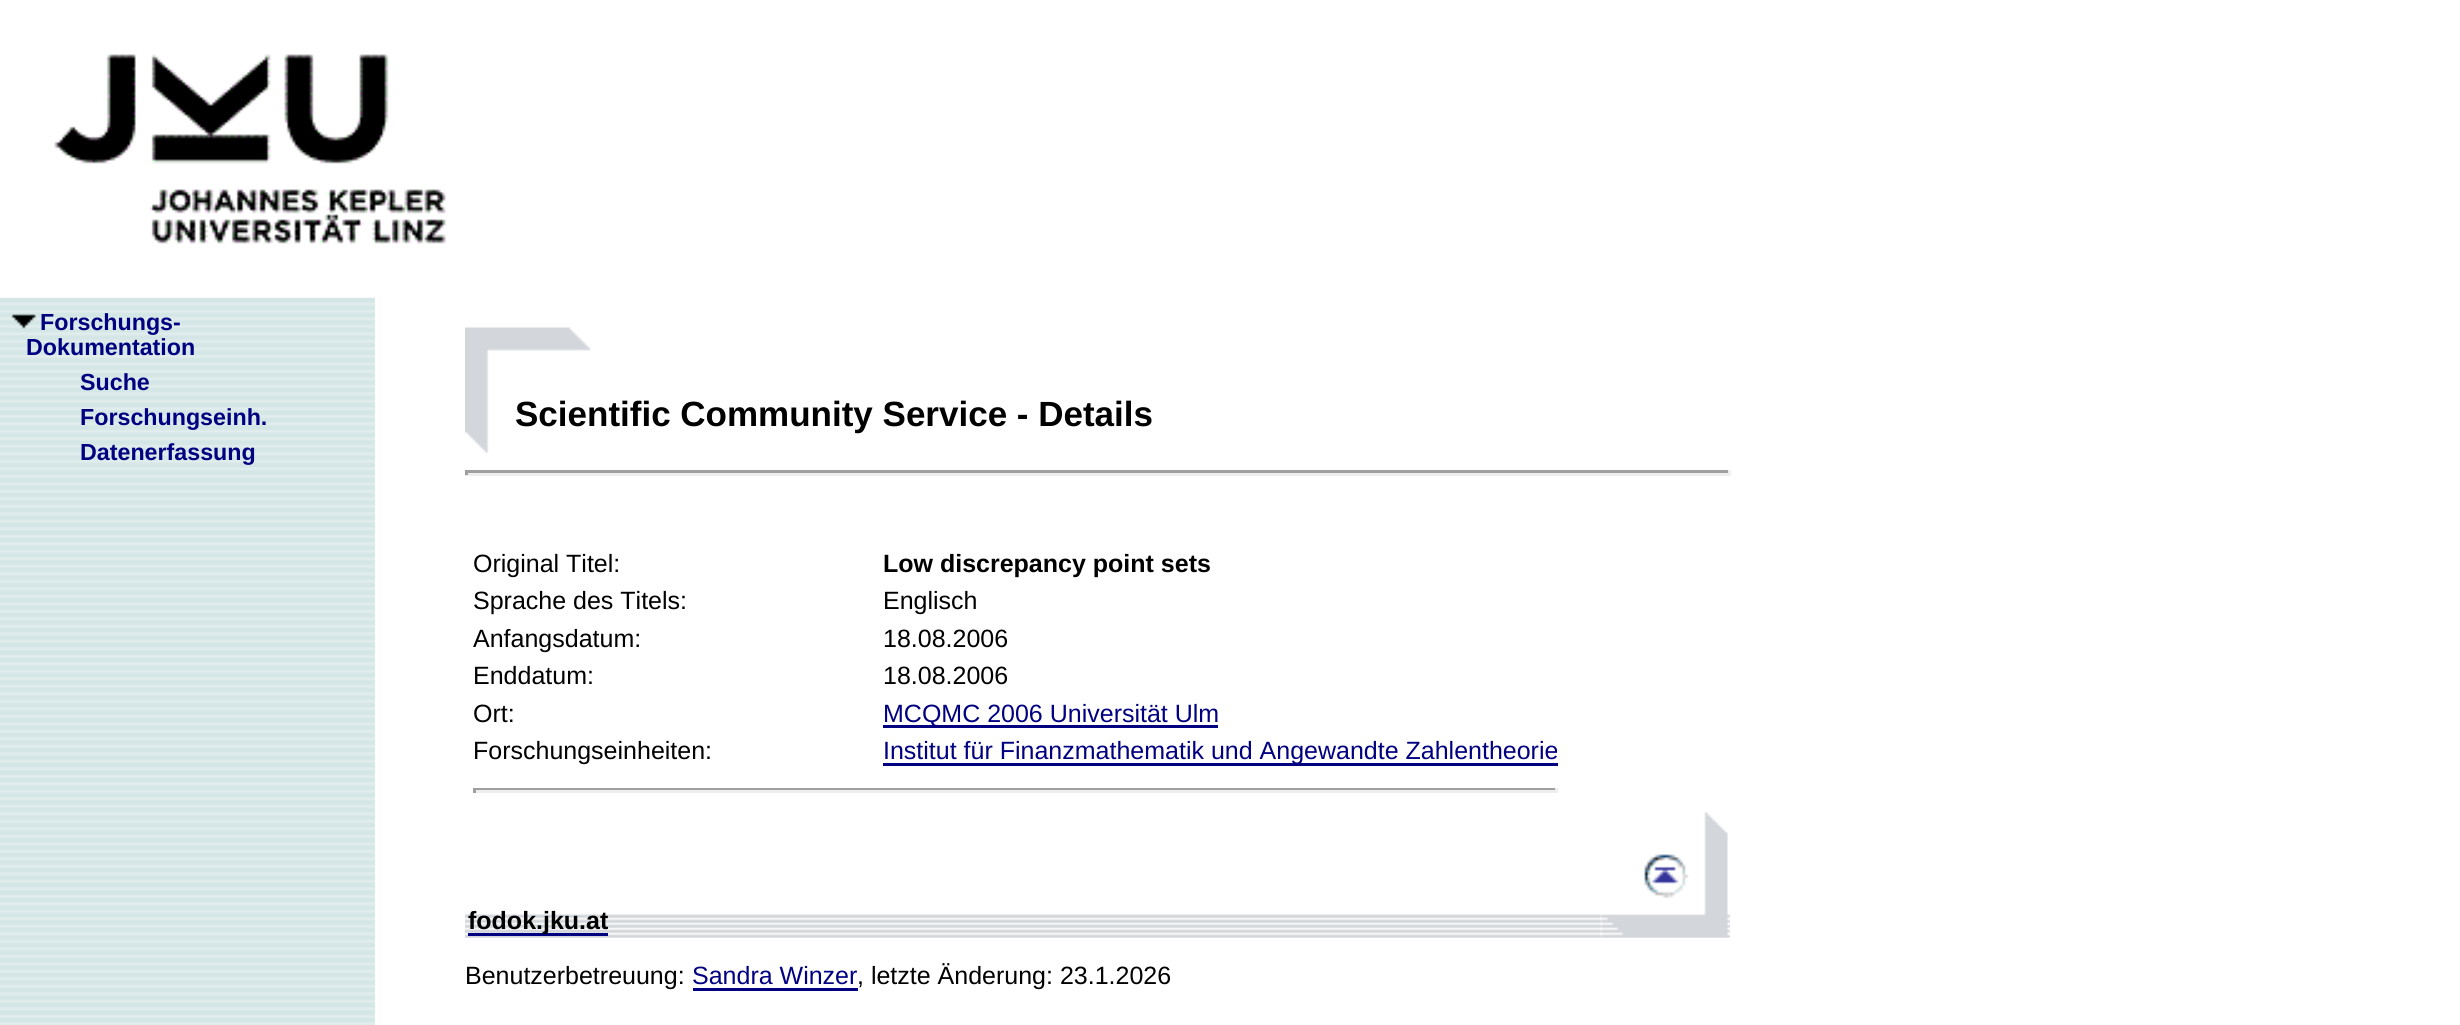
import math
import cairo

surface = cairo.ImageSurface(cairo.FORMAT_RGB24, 2460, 1025)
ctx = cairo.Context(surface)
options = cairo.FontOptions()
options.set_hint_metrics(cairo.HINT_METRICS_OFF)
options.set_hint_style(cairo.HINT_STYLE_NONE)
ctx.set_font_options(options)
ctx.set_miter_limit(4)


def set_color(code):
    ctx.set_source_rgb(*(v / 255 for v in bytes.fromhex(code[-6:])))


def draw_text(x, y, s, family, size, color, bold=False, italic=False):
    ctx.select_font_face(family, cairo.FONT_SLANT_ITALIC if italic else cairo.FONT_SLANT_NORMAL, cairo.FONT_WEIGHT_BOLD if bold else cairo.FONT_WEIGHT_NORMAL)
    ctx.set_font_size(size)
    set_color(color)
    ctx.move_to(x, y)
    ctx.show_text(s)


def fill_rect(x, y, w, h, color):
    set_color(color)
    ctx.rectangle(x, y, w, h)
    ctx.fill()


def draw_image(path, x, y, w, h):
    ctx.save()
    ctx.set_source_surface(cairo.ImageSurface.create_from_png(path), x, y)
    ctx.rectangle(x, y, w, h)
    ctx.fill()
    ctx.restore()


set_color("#ffffff")
ctx.paint()
draw_image("assets/img2.png", 0, 297, 375, 728)
draw_image("assets/img1.png", 0, 54, 446, 244)
draw_image("assets/img3.png", 11, 314, 25, 15)
draw_text(40, 330, "Forschungs-", "Liberation Sans", 23.25, "#000080", bold=True)
draw_text(26, 355, "Dokumentation", "Liberation Sans", 23.25, "#000080", bold=True)
draw_text(80, 390, "Suche", "Liberation Sans", 23.25, "#000080", bold=True)
draw_text(80, 425, "Forschungseinh.", "Liberation Sans", 23.25, "#000080", bold=True)
draw_text(80, 460, "Datenerfassung", "Liberation Sans", 23.25, "#000080", bold=True)
draw_image("assets/img4.png", 465, 327, 125, 126)
draw_text(515, 426, "Scientific Community Service - Details", "Liberation Sans", 35, "#000000", bold=True)
fill_rect(465, 470, 1265, 3, "#9f9f9f")
fill_rect(1728, 470, 3, 5, "#eeeeee")
fill_rect(465, 473, 1265, 3, "#eeeeee")
fill_rect(465, 470, 3, 5, "#9f9f9f")
draw_text(473, 572, "Original Titel:", "Liberation Sans", 25, "#000000")
draw_text(883, 572, "Low discrepancy point sets", "Liberation Sans", 25, "#000000", bold=True)
draw_text(473, 609, "Sprache des Titels:", "Liberation Sans", 25, "#000000")
draw_text(883, 609, "Englisch", "Liberation Sans", 25, "#000000")
draw_text(473, 647, "Anfangsdatum:", "Liberation Sans", 25, "#000000")
draw_text(883, 647, "18.08.2006", "Liberation Sans", 25, "#000000")
draw_text(473, 684, "Enddatum:", "Liberation Sans", 25, "#000000")
draw_text(883, 684, "18.08.2006", "Liberation Sans", 25, "#000000")
draw_text(473, 722, "Ort:", "Liberation Sans", 25, "#000000")
fill_rect(883, 725, 335, 3, "#000080")
draw_text(883, 722, "MCQMC 2006 Universität Ulm", "Liberation Sans", 25, "#000080")
draw_text(473, 759, "Forschungseinheiten:", "Liberation Sans", 25, "#000000")
fill_rect(883, 763, 675, 3, "#000080")
draw_text(883, 759, "Institut für Finanzmathematik und Angewandte Zahlentheorie", "Liberation Sans", 25, "#000080")
fill_rect(473, 788, 1085, 2, "#9f9f9f")
fill_rect(1555, 788, 3, 5, "#eeeeee")
fill_rect(473, 790, 1085, 3, "#eeeeee")
fill_rect(473, 788, 3, 5, "#9f9f9f")
draw_image("assets/img5.png", 465, 914, 1265, 24)
draw_image("assets/img6.png", 465, 914, 1135, 24)
fill_rect(468, 933, 140, 3, "#000080")
draw_text(468, 929, "fodok.jku.at", "Liberation Sans", 25, "#000000", bold=True)
draw_image("assets/img7.png", 1602, 812, 126, 126)
draw_image("assets/img8.png", 1644, 854, 45, 45)
draw_text(465, 984, "Benutzerbetreuung:", "Liberation Sans", 25, "#000000")
draw_text(692, 984, "Sandra Winzer", "Liberation Sans", 25, "#000080")
fill_rect(693, 988, 165, 3, "#000080")
draw_text(857, 984, ", letzte Änderung: 23.1.2026", "Liberation Sans", 25, "#000000")
surface.write_to_png("output.png")
